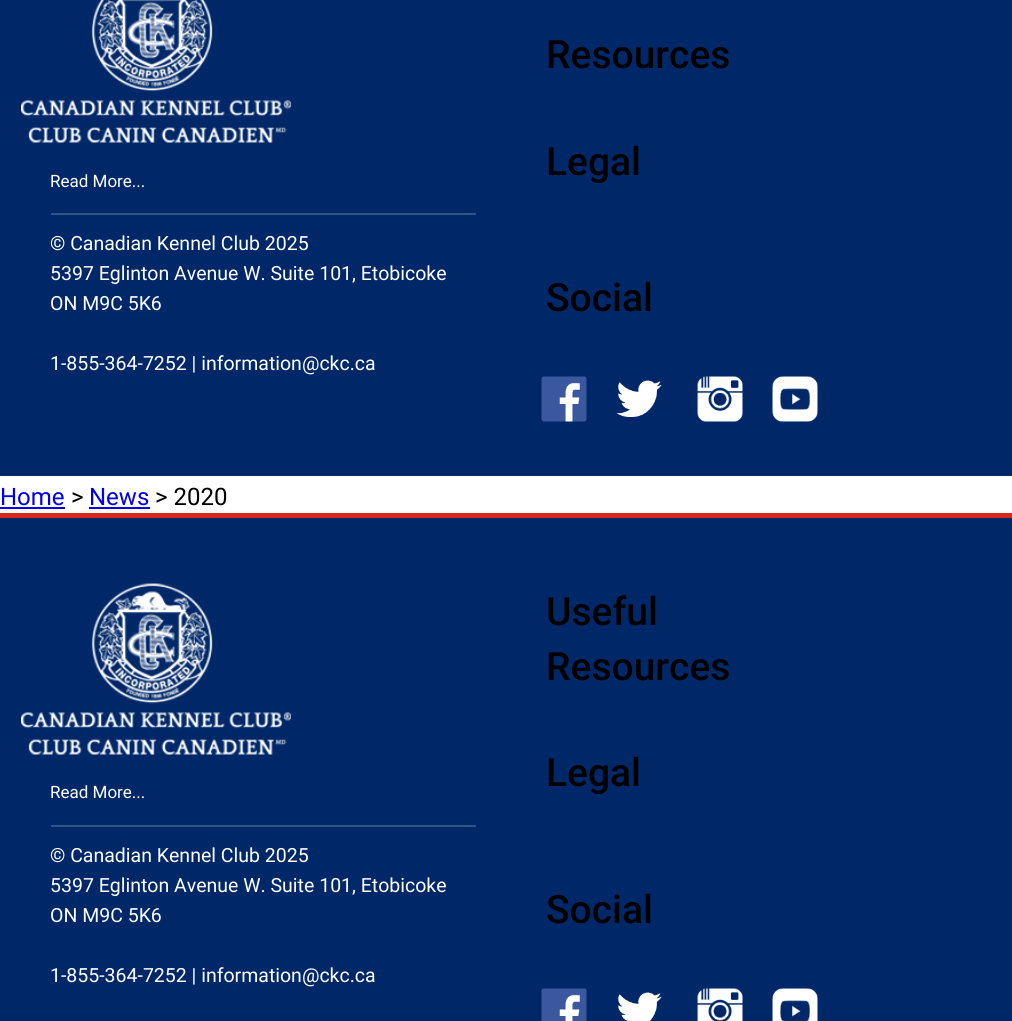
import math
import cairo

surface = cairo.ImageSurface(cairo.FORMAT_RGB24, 1012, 1021)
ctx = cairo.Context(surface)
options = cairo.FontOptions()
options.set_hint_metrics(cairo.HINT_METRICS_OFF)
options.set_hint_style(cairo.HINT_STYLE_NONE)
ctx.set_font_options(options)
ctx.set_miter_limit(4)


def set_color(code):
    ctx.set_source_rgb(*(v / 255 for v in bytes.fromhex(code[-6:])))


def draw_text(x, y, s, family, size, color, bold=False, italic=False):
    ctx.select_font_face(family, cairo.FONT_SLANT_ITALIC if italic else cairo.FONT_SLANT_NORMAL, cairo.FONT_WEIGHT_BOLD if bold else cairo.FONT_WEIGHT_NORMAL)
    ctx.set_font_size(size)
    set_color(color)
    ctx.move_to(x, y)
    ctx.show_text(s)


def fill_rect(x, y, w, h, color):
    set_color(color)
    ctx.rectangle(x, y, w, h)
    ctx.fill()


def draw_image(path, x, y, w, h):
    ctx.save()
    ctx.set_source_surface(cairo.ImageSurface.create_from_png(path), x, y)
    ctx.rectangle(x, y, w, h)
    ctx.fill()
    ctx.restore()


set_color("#ffffff")
ctx.paint()
fill_rect(0, 0, 1012, 476, "#002868")
draw_image("assets/img1.png", 21, 0, 270, 143)
draw_text(50, 187, "Read More...", "Roboto", 17, "#ffffff")
fill_rect(51, 213, 425, 2, "#335386")
draw_text(50, 250, "© Canadian Kennel Club 2025", "Roboto", 19.5, "#ffffff")
draw_text(50, 280, "5397 Eglinton Avenue W. Suite 101, Etobicoke", "Roboto", 19.5, "#ffffff")
draw_text(50, 310, "ON M9C 5K6", "Roboto", 19.5, "#ffffff")
draw_text(50, 370, "1-855-364-7252 | information@ckc.ca", "Roboto", 19.5, "#ffffff")
draw_text(546, 68, "Resources", "Roboto Medium", 39, "#000000")
draw_text(546, 175, "Legal", "Roboto Medium", 39, "#000000")
draw_text(546, 311, "Social", "Roboto Medium", 39, "#000000")
draw_image("assets/img2.png", 541, 376, 46, 46)
draw_image("assets/img3.png", 616, 380, 46, 37)
draw_image("assets/img4.png", 697, 376, 46, 46)
draw_image("assets/img5.png", 772, 376, 46, 46)
draw_text(0, 505, "Home", "Roboto", 24, "#0000ee")
fill_rect(0, 507, 65, 2, "#0000ee")
draw_text(71, 505, ">", "Roboto", 24, "#000000")
draw_text(89, 505, "News", "Roboto", 24, "#0000ee")
fill_rect(89, 507, 61, 2, "#0000ee")
draw_text(155, 505, "> 2020", "Roboto", 24, "#000000")
fill_rect(0, 518, 1012, 503, "#002868")
fill_rect(0, 513, 1012, 5, "#da291c")
draw_image("assets/img6.png", 21, 583, 270, 172)
draw_text(50, 798, "Read More...", "Roboto", 17, "#ffffff")
fill_rect(51, 825, 425, 2, "#335386")
draw_text(50, 862, "© Canadian Kennel Club 2025", "Roboto", 19.5, "#ffffff")
draw_text(50, 892, "5397 Eglinton Avenue W. Suite 101, Etobicoke", "Roboto", 19.5, "#ffffff")
draw_text(50, 922, "ON M9C 5K6", "Roboto", 19.5, "#ffffff")
draw_text(50, 982, "1-855-364-7252 | information@ckc.ca", "Roboto", 19.5, "#ffffff")
draw_text(546, 625, "Useful", "Roboto Medium", 39, "#000000")
draw_text(546, 680, "Resources", "Roboto Medium", 39, "#000000")
draw_text(546, 786, "Legal", "Roboto Medium", 39, "#000000")
draw_text(546, 923, "Social", "Roboto Medium", 39, "#000000")
draw_image("assets/img7.png", 541, 988, 46, 33)
draw_image("assets/img8.png", 618, 992, 44, 29)
draw_image("assets/img9.png", 697, 988, 46, 33)
draw_image("assets/img10.png", 772, 988, 46, 33)
surface.write_to_png("output.png")
